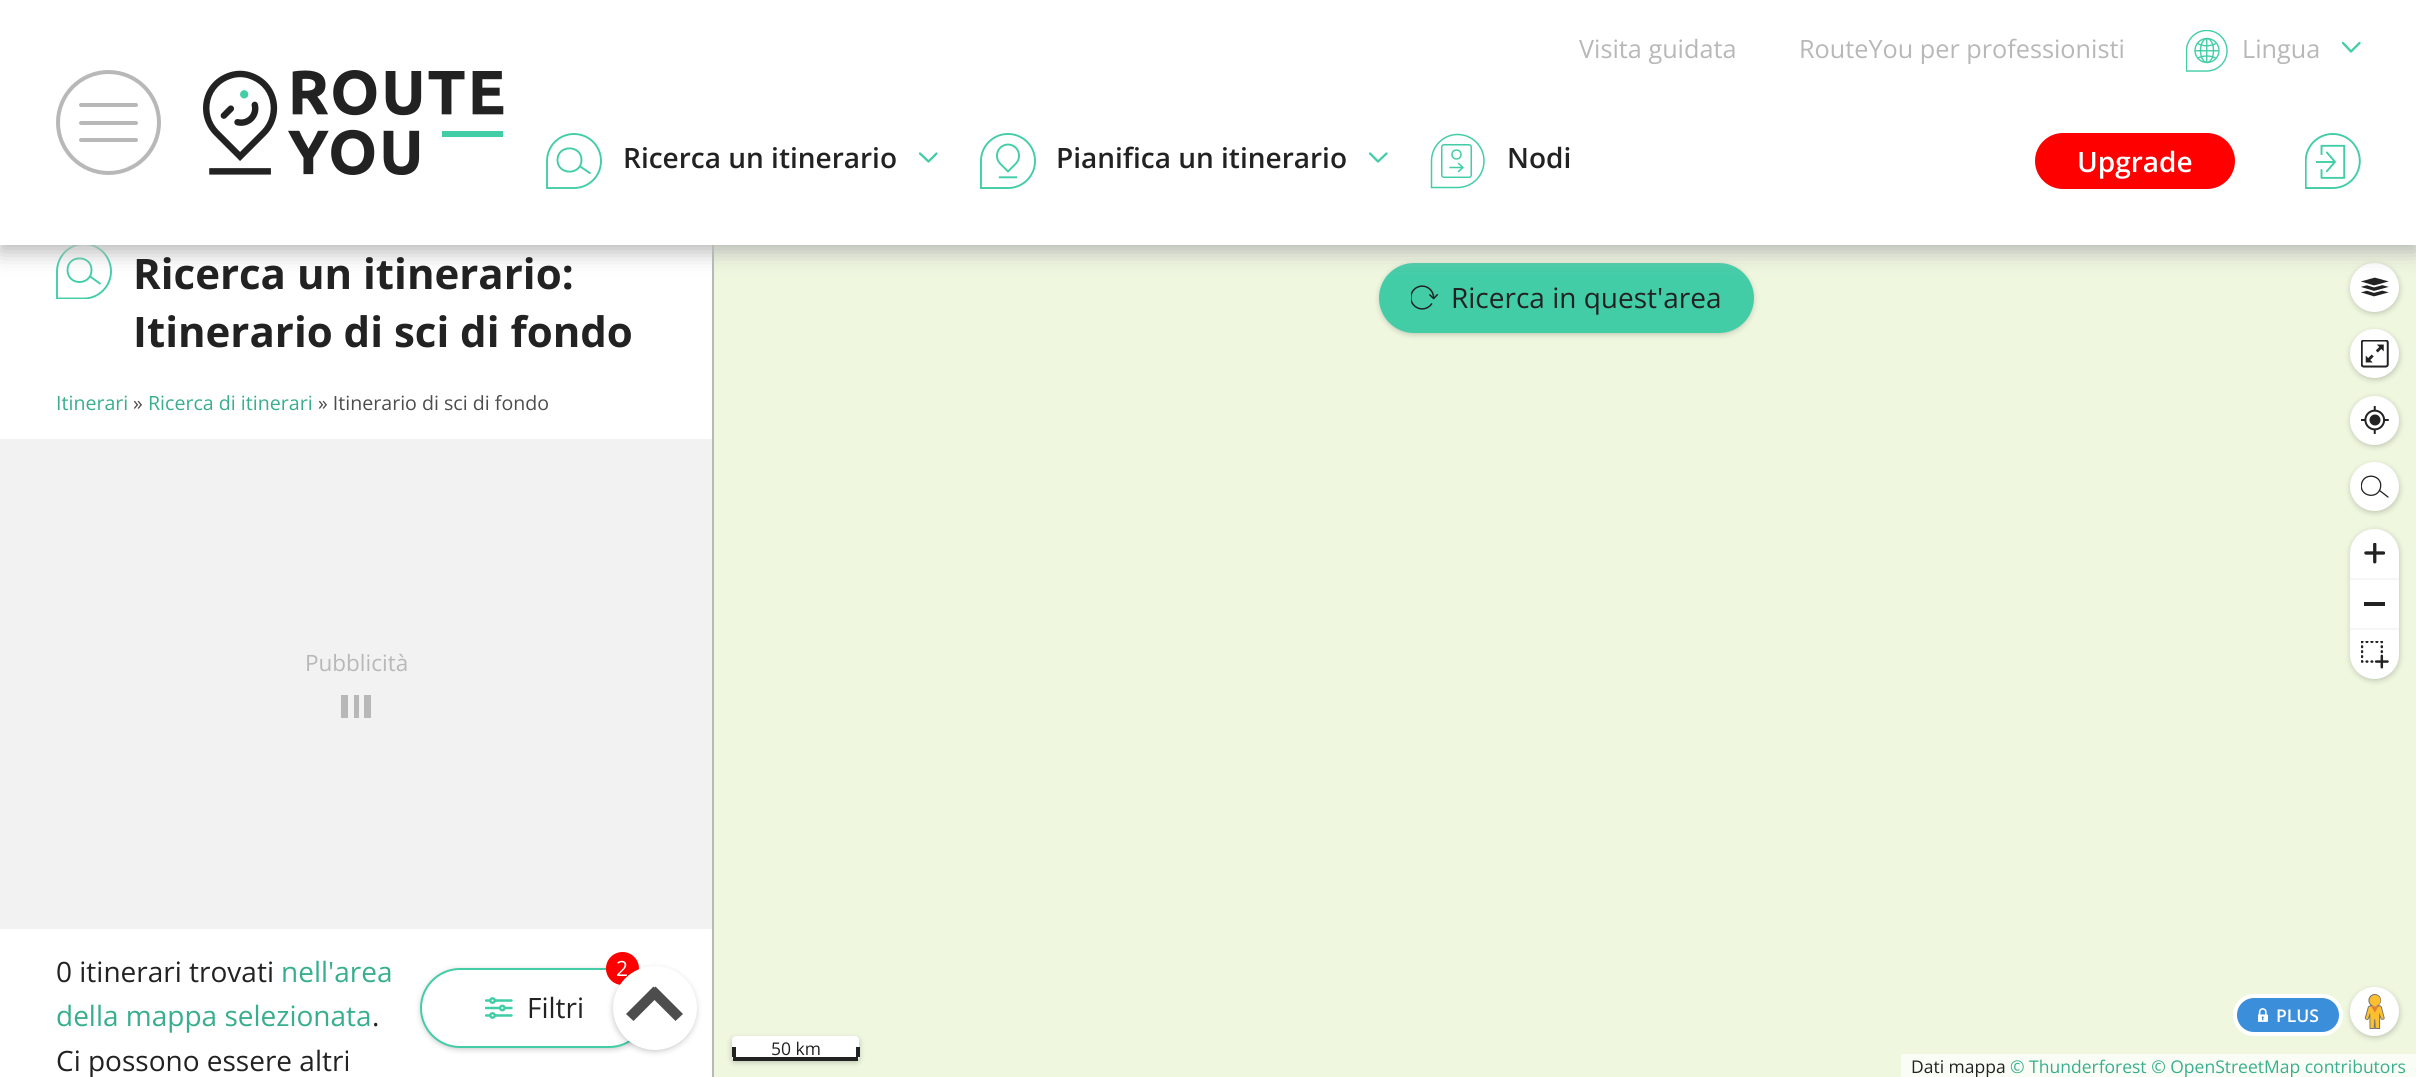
import math
import cairo

surface = cairo.ImageSurface(cairo.FORMAT_RGB24, 2416, 1077)
ctx = cairo.Context(surface)
options = cairo.FontOptions()
options.set_hint_metrics(cairo.HINT_METRICS_OFF)
options.set_hint_style(cairo.HINT_STYLE_NONE)
ctx.set_font_options(options)
ctx.set_miter_limit(4)


def set_color(code):
    ctx.set_source_rgb(*(v / 255 for v in bytes.fromhex(code[-6:])))


def draw_text(x, y, s, family, size, color, bold=False, italic=False):
    ctx.select_font_face(family, cairo.FONT_SLANT_ITALIC if italic else cairo.FONT_SLANT_NORMAL, cairo.FONT_WEIGHT_BOLD if bold else cairo.FONT_WEIGHT_NORMAL)
    ctx.set_font_size(size)
    set_color(color)
    ctx.move_to(x, y)
    ctx.show_text(s)


def fill_rect(x, y, w, h, color):
    set_color(color)
    ctx.rectangle(x, y, w, h)
    ctx.fill()


def rounded_rect(x, y, w, h, r):
    ctx.new_sub_path()
    for i, (u, v) in enumerate([(x + w - r, y + h - r), (x + r, y + h - r), (x + r, y + r), (x + w - r, y + r)]):
        ctx.arc(u, v, r, i * math.pi / 2, (i + 1) * math.pi / 2)
    ctx.close_path()


def draw_shadow(x, y, w, h, r, blur, alpha):
    ctx.push_group_with_content(cairo.CONTENT_ALPHA)
    ctx.set_operator(cairo.OPERATOR_SOURCE)
    for i in range(15, -16, -2):
        e = blur * i / 6
        if min(w, h) + 2 * e > 0:
            ctx.set_source_rgba(0, 0, 0, alpha * math.erfc((i - 1) / 8.5) / 2)
            rounded_rect(x - e, y - e, w + 2 * e, h + 2 * e, max(0, min(r + e + blur * .6, min(w, h) / 2 + e)))
            ctx.fill()
    ctx.mask(ctx.pop_group())


def draw_image(path, x, y, w, h):
    ctx.save()
    ctx.set_source_surface(cairo.ImageSurface.create_from_png(path), x, y)
    ctx.rectangle(x, y, w, h)
    ctx.fill()
    ctx.restore()


set_color("#ffffff")
ctx.paint()
ctx.new_path()
ctx.move_to(91.5, 270)
ctx.curve_to(91.5, 286, 67.5, 286, 67.5, 270)
ctx.curve_to(67.5, 254.5, 91.5, 254.5, 91.5, 270)
ctx.close_path()
ctx.move_to(89.5, 276)
ctx.line_to(100.5, 284)
set_color("#42cda7")
ctx.set_line_width(1.9)
ctx.stroke()
ctx.save()
ctx.rectangle(56, 243, 56, 56)
ctx.clip()
ctx.new_path()
ctx.move_to(84, 298.5)
ctx.line_to(57, 298.5)
ctx.line_to(57, 271.5)
ctx.curve_to(57, 256.5, 69, 244, 84, 244)
ctx.curve_to(99, 244, 111, 256.5, 111, 271.5)
ctx.curve_to(111, 286, 99, 298.5, 84, 298.5)
ctx.close_path()
ctx.stroke()
ctx.restore()
fill_rect(712, 245, 2, 832, "#b8b8b8")
fill_rect(714, 245, 1702, 832, "#eff7df")
set_color("#000000")
draw_shadow(1381, 266, 371, 67, 33.5, 3.5, 0.3)
set_color("#42cda7")
rounded_rect(1379, 263, 375, 70, 35)
ctx.fill()
set_color("#000000")
draw_shadow(2352, 266, 46, 46, 23, 3.5, 0.3)
set_color("#ffffff")
ctx.arc(2374.5, 287.5, 24.5, 0, 2 * math.pi)
ctx.fill()
draw_image("assets/img6.png", 2361, 277, 28, 20)
set_color("#b8b8b8")
draw_shadow(0, 7, 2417, 245, 0, 10.5, 1)
fill_rect(0, 0, 2416, 245, "#ffffff")
draw_text(1579, 58, "Visita guidata", "Open Sans", 25.25, "#b8b8b8")
draw_text(1799, 58, "RouteYou per professionisti", "Open Sans", 25.25, "#b8b8b8")
draw_image("assets/img1.png", 2186, 30, 42, 42)
draw_text(2242, 58, "Lingua", "Open Sans", 25.25, "#b8b8b8")
ctx.new_path()
ctx.move_to(2359.5, 43)
ctx.line_to(2351, 51.5)
ctx.line_to(2343, 43)
set_color("#42cda7")
ctx.set_line_width(2.3)
ctx.set_line_cap(cairo.LINE_CAP_ROUND)
ctx.set_line_join(cairo.LINE_JOIN_ROUND)
ctx.stroke()
ctx.arc(108.5, 122.5, 50.5, 0, 2 * math.pi)
set_color("#b8b8b8")
ctx.set_line_width(4)
ctx.set_line_cap(cairo.LINE_CAP_BUTT)
ctx.set_line_join(cairo.LINE_JOIN_MITER)
ctx.stroke()
rounded_rect(79, 103, 59, 4, 2)
ctx.fill()
rounded_rect(79, 121, 59, 4, 2)
ctx.fill()
rounded_rect(79, 138, 59, 4, 2)
ctx.fill()
draw_image("assets/img2.png", 203, 70, 301, 105)
ctx.new_path()
ctx.move_to(581.5, 160)
ctx.curve_to(581.5, 175.5, 557.5, 175.5, 557.5, 160)
ctx.curve_to(557.5, 144.5, 581.5, 144.5, 581.5, 160)
ctx.close_path()
ctx.move_to(579.5, 166)
ctx.line_to(590.5, 173.5)
ctx.move_to(574, 188)
ctx.line_to(547, 188)
ctx.line_to(547, 161)
ctx.curve_to(547, 146, 559, 134, 574, 134)
ctx.curve_to(589, 134, 601, 146, 601, 161)
ctx.curve_to(601, 176, 589, 188, 574, 188)
ctx.close_path()
set_color("#42cda7")
ctx.set_line_width(1.9)
ctx.stroke()
draw_text(623, 168, "Ricerca un itinerario", "Open Sans SemiBold", 28, "#222222")
ctx.new_path()
ctx.move_to(936.5, 153.5)
ctx.line_to(928.5, 161.5)
ctx.line_to(920, 153.5)
set_color("#42cda7")
ctx.set_line_width(2.3)
ctx.set_line_cap(cairo.LINE_CAP_ROUND)
ctx.set_line_join(cairo.LINE_JOIN_ROUND)
ctx.stroke()
draw_image("assets/img3.png", 980, 133, 56, 56)
draw_text(1056, 168, "Pianifica un itinerario", "Open Sans SemiBold", 28, "#222222")
ctx.new_path()
ctx.move_to(1386.5, 153.5)
ctx.line_to(1378, 161.5)
ctx.line_to(1370, 153.5)
set_color("#42cda7")
ctx.stroke()
ctx.new_path()
ctx.move_to(1458, 187.5)
ctx.line_to(1431.5, 187.5)
ctx.line_to(1431.5, 161)
ctx.curve_to(1431.5, 146.5, 1443, 134.5, 1457.5, 134.5)
ctx.curve_to(1472.5, 134.5, 1484, 146.5, 1484, 161)
ctx.curve_to(1484, 175.5, 1472.5, 187.5, 1457.5, 187.5)
ctx.close_path()
ctx.set_line_width(1.5)
ctx.set_line_cap(cairo.LINE_CAP_BUTT)
ctx.set_line_join(cairo.LINE_JOIN_MITER)
ctx.stroke()
ctx.arc(1456.5, 154.5, 4.5, 0, 2 * math.pi)
ctx.stroke()
rounded_rect(1441.75, 144.75, 29.5, 32.5, 2.25)
ctx.stroke()
ctx.new_path()
ctx.move_to(1450, 167.5)
ctx.line_to(1463, 167.5)
ctx.move_to(1458.5, 163.5)
ctx.line_to(1463, 167.5)
ctx.line_to(1458.5, 171.5)
ctx.set_line_cap(cairo.LINE_CAP_ROUND)
ctx.set_line_join(cairo.LINE_JOIN_ROUND)
ctx.stroke()
draw_text(1507, 168, "Nodi", "Open Sans SemiBold", 28, "#222222")
set_color("#ff0000")
rounded_rect(2035, 133, 200, 56, 28)
ctx.fill()
draw_text(2077, 172, "Upgrade", "Open Sans SemiBold", 28, "#ffffff")
draw_image("assets/img4.png", 2305, 133, 56, 56)
draw_text(133, 289, "Ricerca un itinerario:", "Open Sans", 42, "#222222", bold=True)
draw_text(133, 347, "Itinerario di sci di fondo", "Open Sans", 42, "#222222", bold=True)
draw_image("assets/img5.png", 1411, 285, 27, 25)
draw_text(1451, 308, "Ricerca in quest'area", "Open Sans", 28, "#222222")
set_color("#000000")
draw_shadow(2352, 333, 46, 45, 22.5, 3.5, 0.3)
set_color("#ffffff")
ctx.arc(2374.5, 353.5, 24.5, 0, 2 * math.pi)
ctx.fill()
draw_image("assets/img7.png", 2361, 340, 28, 28)
set_color("#000000")
draw_shadow(2352, 399, 46, 46, 23, 3.5, 0.3)
set_color("#ffffff")
ctx.arc(2374.5, 420.5, 24.5, 0, 2 * math.pi)
ctx.fill()
draw_image("assets/img8.png", 2361, 406, 28, 28)
set_color("#000000")
draw_shadow(2352, 466, 46, 45, 22.5, 3.5, 0.3)
set_color("#ffffff")
ctx.arc(2374.5, 486.5, 24.5, 0, 2 * math.pi)
ctx.fill()
ctx.save()
ctx.rectangle(2361, 473, 28, 28)
ctx.clip()
ctx.new_path()
ctx.move_to(2361.5, 484)
ctx.curve_to(2364, 471.5, 2383, 475, 2380.5, 487.5)
ctx.curve_to(2378, 500, 2359, 496.5, 2361.5, 484)
ctx.close_path()
set_color("#222222")
ctx.set_line_width(1.3)
ctx.set_line_join(cairo.LINE_JOIN_MITER)
ctx.stroke()
ctx.restore()
ctx.new_path()
ctx.move_to(2379.5, 490.5)
ctx.line_to(2388, 497)
set_color("#222222")
ctx.set_line_width(1.3)
ctx.set_line_join(cairo.LINE_JOIN_MITER)
ctx.stroke()
set_color("#000000")
draw_shadow(2352, 532, 46, 147, 23, 3.5, 0.3)
set_color("#ffffff")
rounded_rect(2350, 529, 49, 150, 24.5)
ctx.fill()
draw_image("assets/img9.png", 2364, 543, 21, 21)
fill_rect(2350, 578, 49, 2, "#f6f6f6")
fill_rect(2364, 602, 21, 4, "#222222")
fill_rect(2350, 628, 49, 2, "#f6f6f6")
draw_image("assets/img10.png", 2361, 641, 28, 28)
set_color("#000000")
draw_shadow(2352, 991, 46, 45, 22.5, 3.5, 0.3)
set_color("#ffffff")
ctx.arc(2374.5, 1011.5, 24.5, 0, 2 * math.pi)
ctx.fill()
set_color("#3b8eda")
rounded_rect(2235, 996, 106, 38, 19)
ctx.fill_preserve()
set_color("#ffffff")
ctx.set_line_width(4)
ctx.set_line_cap(cairo.LINE_CAP_BUTT)
ctx.stroke()
draw_image("assets/img11.png", 2258, 1008, 10, 14)
draw_text(2276, 1022, "PLUS", "Open Sans SemiBold", 17.5, "#ffffff")
draw_image("assets/img12.png", 2364, 994, 21, 35)
set_color("#000000")
draw_shadow(733, 1040, 125, 21, 2, 3.5, 0.3)
set_color("#ffffff")
rounded_rect(732, 1036, 127, 25, 4)
ctx.fill()
fill_rect(733, 1057, 125, 4, "#222222")
fill_rect(732, 1047, 4, 10, "#222222")
draw_text(771, 1055, "50 km", "Open Sans", 17.5, "#222222")
fill_rect(856, 1047, 4, 10, "#222222")
fill_rect(1901, 1054, 515, 23, "#fafdf5")
draw_text(1911, 1073, "Dati mappa", "Open Sans", 17.5, "#222222")
draw_text(2010, 1073, "© Thunderforest © OpenStreetMap contributors", "Open Sans", 17.5, "#38ae8e")
draw_text(56, 410, "Itinerari", "Open Sans", 19.6, "#38ae8e")
draw_text(133, 410, "»", "Open Sans", 19.6, "#4d4d4d")
draw_text(148, 410, "Ricerca di itinerari", "Open Sans", 19.6, "#38ae8e")
draw_text(318, 410, "» Itinerario di sci di fondo", "Open Sans", 19.6, "#4d4d4d")
fill_rect(0, 439, 712, 490, "#f2f2f2")
draw_text(305, 671, "Pubblicità", "Open Sans", 22.5, "#b8b8b8")
fill_rect(354, 695, 5, 23, "#b8b8b8")
fill_rect(341, 695, 7, 23, "#b8b8b8")
fill_rect(364, 695, 7, 23, "#b8b8b8")
draw_text(56, 982, "0 itinerari trovati", "Open Sans", 28, "#222222")
draw_text(281, 982, "nell'area", "Open Sans", 28, "#38ae8e")
draw_text(56, 1026, "della mappa selezionata", "Open Sans", 28, "#38ae8e")
draw_text(372, 1026, ".", "Open Sans", 28, "#222222")
draw_text(56, 1071, "Ci possono essere altri", "Open Sans", 28, "#222222")
set_color("#000000")
draw_shadow(422, 971, 226, 77, 38.5, 3.5, 0.3)
set_color("#ffffff")
rounded_rect(421, 969, 227, 78, 39)
ctx.fill_preserve()
set_color("#42cda7")
ctx.set_line_width(2)
ctx.stroke()
set_color("#ff0000")
ctx.arc(622.5, 968.5, 16.5, 0, 2 * math.pi)
ctx.fill()
draw_text(616, 976, "2", "Open Sans", 21, "#ffffff")
draw_image("assets/img13.png", 485, 997, 28, 22)
draw_text(527, 1018, "Filtri", "Open Sans", 28, "#222222")
set_color("#000000")
draw_shadow(614, 970, 81, 80, 40, 3.5, 0.3)
set_color("#ffffff")
ctx.arc(655, 1008, 42, 0, 2 * math.pi)
ctx.fill()
set_color("#4d4d4d")
ctx.new_path()
ctx.move_to(655.5, 986.5)
ctx.line_to(683, 1014)
ctx.line_to(675.5, 1021)
ctx.line_to(648.5, 994)
ctx.close_path()
ctx.fill()
ctx.new_path()
ctx.move_to(653.5, 986.5)
ctx.line_to(660.5, 994)
ctx.line_to(633.5, 1021)
ctx.line_to(626, 1014)
ctx.close_path()
ctx.fill()
surface.write_to_png("output.png")
